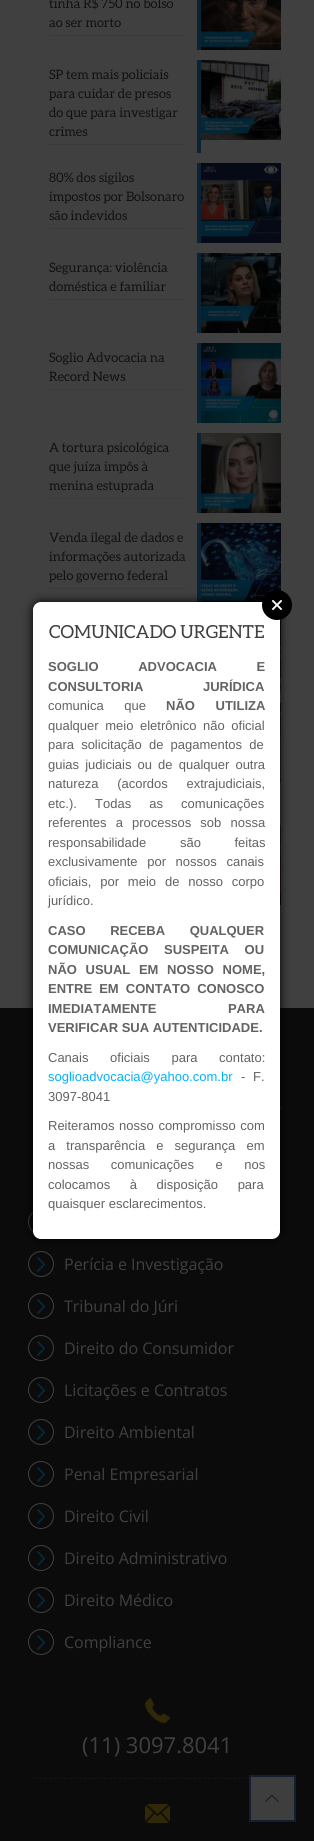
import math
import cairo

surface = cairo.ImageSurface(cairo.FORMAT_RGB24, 314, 1841)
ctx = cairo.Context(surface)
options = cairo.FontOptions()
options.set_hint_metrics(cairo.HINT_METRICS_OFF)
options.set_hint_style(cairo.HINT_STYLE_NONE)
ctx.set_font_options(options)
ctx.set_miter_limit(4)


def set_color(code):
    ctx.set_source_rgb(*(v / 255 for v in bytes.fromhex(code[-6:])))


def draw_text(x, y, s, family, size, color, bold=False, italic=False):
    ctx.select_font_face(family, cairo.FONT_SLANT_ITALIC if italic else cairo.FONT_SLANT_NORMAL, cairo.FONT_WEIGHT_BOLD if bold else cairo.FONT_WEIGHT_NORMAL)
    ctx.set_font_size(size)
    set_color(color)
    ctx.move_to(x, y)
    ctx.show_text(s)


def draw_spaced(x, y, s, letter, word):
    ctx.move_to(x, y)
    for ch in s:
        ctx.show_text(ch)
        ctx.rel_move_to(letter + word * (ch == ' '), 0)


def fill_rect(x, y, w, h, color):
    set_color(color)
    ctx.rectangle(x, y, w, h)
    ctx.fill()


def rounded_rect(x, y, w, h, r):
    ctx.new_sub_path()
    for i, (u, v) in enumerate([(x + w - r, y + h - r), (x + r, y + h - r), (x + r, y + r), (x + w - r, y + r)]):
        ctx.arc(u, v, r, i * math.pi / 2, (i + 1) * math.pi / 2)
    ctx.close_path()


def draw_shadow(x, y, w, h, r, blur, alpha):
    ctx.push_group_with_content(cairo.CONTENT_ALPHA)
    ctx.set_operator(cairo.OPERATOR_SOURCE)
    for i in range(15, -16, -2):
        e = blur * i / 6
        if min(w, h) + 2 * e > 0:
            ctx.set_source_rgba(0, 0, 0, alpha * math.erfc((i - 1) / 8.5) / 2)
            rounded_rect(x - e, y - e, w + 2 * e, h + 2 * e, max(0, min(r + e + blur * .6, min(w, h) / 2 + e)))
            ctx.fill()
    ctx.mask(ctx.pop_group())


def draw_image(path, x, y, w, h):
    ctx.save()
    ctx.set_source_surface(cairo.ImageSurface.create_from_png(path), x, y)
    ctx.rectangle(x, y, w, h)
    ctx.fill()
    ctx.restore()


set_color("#404040")
ctx.paint()
fill_rect(49, 35, 137, 1, "#3b3b3b")
draw_text(49, 8, "tinha R$ 750 no bolso", "Aleo", 13, "#111111")
draw_text(49, 27, "ao ser morto", "Aleo", 13, "#111111")
fill_rect(197, 0, 4, 50, "#0a2436")
draw_image("assets/img1.png", 201, 0, 80, 50)
fill_rect(49, 144, 137, 1, "#3b3b3b")
draw_text(49, 79, "SP tem mais policiais", "Aleo", 13, "#111111")
draw_text(49, 98, "para cuidar de presos", "Aleo", 13, "#111111")
draw_text(49, 117, "do que para investigar", "Aleo", 13, "#111111")
draw_text(49, 136, "crimes", "Aleo", 13, "#111111")
fill_rect(197, 60, 4, 93, "#0a2436")
draw_image("assets/img2.png", 201, 60, 80, 80)
fill_rect(49, 228, 137, 1, "#3b3b3b")
draw_text(49, 182, "80% dos sigilos", "Aleo", 13, "#111111")
draw_text(49, 201, "impostos por Bolsonaro", "Aleo", 13, "#111111")
draw_text(49, 220, "são indevidos", "Aleo", 13, "#111111")
fill_rect(197, 163, 4, 80, "#0a2436")
draw_image("assets/img3.png", 201, 163, 80, 80)
fill_rect(49, 299, 137, 1, "#3b3b3b")
draw_text(49, 272, "Segurança: violência", "Aleo", 13, "#111111")
draw_text(49, 291, "doméstica e familiar", "Aleo", 13, "#111111")
fill_rect(197, 253, 4, 80, "#0a2436")
draw_image("assets/img4.png", 201, 253, 80, 80)
fill_rect(49, 389, 137, 1, "#3b3b3b")
draw_text(49, 362, "Soglio Advocacia na", "Aleo", 13, "#111111")
draw_text(49, 381, "Record News", "Aleo", 13, "#111111")
fill_rect(197, 343, 4, 80, "#0a2436")
draw_image("assets/img5.png", 201, 343, 80, 80)
fill_rect(49, 498, 137, 1, "#3b3b3b")
draw_text(49, 452, "A tortura psicológica", "Aleo", 13, "#111111")
draw_text(49, 471, "que juíza impôs à", "Aleo", 13, "#111111")
draw_text(49, 490, "menina estuprada", "Aleo", 13, "#111111")
fill_rect(197, 433, 4, 80, "#0a2436")
draw_image("assets/img6.png", 201, 433, 80, 80)
fill_rect(49, 588, 137, 1, "#3b3b3b")
draw_text(49, 542, "Venda ilegal de dados e", "Aleo", 13, "#111111")
draw_text(49, 561, "informações autorizada", "Aleo", 13, "#111111")
draw_text(49, 580, "pelo governo federal", "Aleo", 13, "#111111")
fill_rect(197, 523, 4, 80, "#0a2436")
draw_image("assets/img7.png", 201, 523, 80, 79)
draw_image("assets/img8.png", 280, 619, 1, 74)
draw_image("assets/img9.png", 280, 703, 1, 80)
draw_image("assets/img10.png", 280, 825, 1, 80)
fill_rect(0, 1008, 314, 833, "#0b0b0c")
fill_rect(280, 1108, 1, 1, "#404040")
ctx.arc(41, 1222, 12.5, 0, 2 * math.pi)
ctx.set_line_width(1)
ctx.stroke()
ctx.arc(41, 1264, 12.5, 0, 2 * math.pi)
ctx.stroke()
draw_image("assets/img11.png", 37, 1257, 8, 15)
draw_text(64, 1270, "Perícia e Investigação", "Open Sans", 16, "#404040")
ctx.new_path()
ctx.arc(41, 1306, 12.5, 0, 2 * math.pi)
ctx.stroke()
draw_image("assets/img11.png", 37, 1299, 8, 15)
draw_text(64, 1312, "Tribunal do Júri", "Open Sans", 16, "#404040")
ctx.new_path()
ctx.arc(41, 1348, 12.5, 0, 2 * math.pi)
ctx.stroke()
draw_image("assets/img11.png", 37, 1341, 8, 15)
draw_text(64, 1354, "Direito do Consumidor", "Open Sans", 16, "#404040")
ctx.new_path()
ctx.arc(41, 1390, 12.5, 0, 2 * math.pi)
ctx.stroke()
draw_image("assets/img11.png", 37, 1383, 8, 15)
draw_text(64, 1396, "Licitações e Contratos", "Open Sans", 16, "#404040")
ctx.new_path()
ctx.arc(41, 1432, 12.5, 0, 2 * math.pi)
ctx.stroke()
draw_image("assets/img11.png", 37, 1425, 8, 15)
draw_text(64, 1438, "Direito Ambiental", "Open Sans", 16, "#404040")
ctx.new_path()
ctx.arc(41, 1474, 12.5, 0, 2 * math.pi)
ctx.stroke()
draw_image("assets/img11.png", 37, 1467, 8, 15)
draw_text(64, 1480, "Penal Empresarial", "Open Sans", 16, "#404040")
ctx.new_path()
ctx.arc(41, 1516, 12.5, 0, 2 * math.pi)
ctx.stroke()
draw_image("assets/img11.png", 37, 1509, 8, 15)
draw_text(64, 1522, "Direito Civil", "Open Sans", 16, "#404040")
ctx.new_path()
ctx.arc(41, 1558, 12.5, 0, 2 * math.pi)
ctx.stroke()
draw_image("assets/img11.png", 37, 1551, 8, 15)
draw_text(64, 1564, "Direito Administrativo", "Open Sans", 16, "#404040")
ctx.new_path()
ctx.arc(41, 1600, 12.5, 0, 2 * math.pi)
ctx.stroke()
draw_image("assets/img11.png", 37, 1593, 8, 15)
draw_text(64, 1606, "Direito Médico", "Open Sans", 16, "#404040")
ctx.new_path()
ctx.arc(41, 1642, 12.5, 0, 2 * math.pi)
ctx.stroke()
draw_image("assets/img12.png", 37, 1635, 8, 15)
draw_text(64, 1648, "Compliance", "Open Sans", 16, "#404040")
draw_image("assets/img13.png", 145, 1698, 25, 25)
ctx.new_path()
ctx.move_to(34, 1778.5)
ctx.line_to(281, 1778.5)
set_color("#151515")
ctx.set_dash([3, 1.98])
ctx.stroke()
draw_text(82, 1753, "(11) 3097.8041", "Open Sans", 22, "#404040")
draw_image("assets/img14.png", 145, 1804, 25, 19)
set_color("#000000")
draw_shadow(33, 602, 247, 637, 8, 5, 1)
set_color("#ffffff")
rounded_rect(33, 602, 247, 637, 8)
ctx.fill()
draw_image("assets/img15.png", 262, 590, 30, 30)
draw_text(49, 638, "COMUNICADO URGENTE", "Aleo", 18, "#404040")
ctx.select_font_face("Liberation Sans", cairo.FONT_SLANT_NORMAL, cairo.FONT_WEIGHT_BOLD)
ctx.set_font_size(13)
set_color("#626262")
draw_spaced(48, 671, "SOGLIO ADVOCACIA E", 0, 36)
draw_spaced(48, 691, "CONSULTORIA JURÍDICA", 0, 56)
ctx.select_font_face("Liberation Sans")
draw_spaced(48, 710, "comunica que", 0, 17)
ctx.select_font_face("Liberation Sans", cairo.FONT_SLANT_NORMAL, cairo.FONT_WEIGHT_BOLD)
draw_spaced(166, 710, "NÃO UTILIZA", 0, 17)
ctx.select_font_face("Liberation Sans")
draw_spaced(48, 730, "qualquer meio eletrônico não oficial", 0, 3)
draw_spaced(48, 749, "para solicitação de pagamentos de", 0, 3.5)
draw_spaced(48, 769, "guias judiciais ou de qualquer outra", 0, 2.5)
draw_spaced(48, 788, "natureza (acordos extrajudiciais,", 0, 15)
draw_spaced(48, 808, "etc.). Todas as comunicações", 0, 14.5)
draw_spaced(48, 827, "referentes a processos sob nossa", 0, 5.5)
draw_spaced(48, 847, "responsabilidade são feitas", 0, 30)
draw_spaced(48, 866, "exclusivamente por nossos canais", 0, 6)
draw_spaced(48, 886, "oficiais, por meio de nosso corpo", 0, 5.25)
draw_text(48, 905, "jurídico.", "Liberation Sans", 13, "#626262")
ctx.select_font_face("Liberation Sans", cairo.FONT_SLANT_NORMAL, cairo.FONT_WEIGHT_BOLD)
draw_spaced(48, 935, "CASO RECEBA QUALQUER", 0, 21)
draw_spaced(48, 954, "COMUNICAÇÃO SUSPEITA OU", 0, 12)
draw_spaced(48, 974, "NÃO USUAL EM NOSSO NOME,", 0, 5)
draw_spaced(48, 993, "ENTRE EM CONTATO CONOSCO", 0, 3.5)
draw_spaced(48, 1013, "IMEDIATAMENTE PARA", 0, 68)
draw_text(48, 1032, "VERIFICAR SUA AUTENTICIDADE.", "Liberation Sans", 13, "#626262", bold=True)
ctx.select_font_face("Liberation Sans")
draw_spaced(48, 1062, "Canais oficiais para contato:", 0, 18)
draw_text(48, 1081, "soglioadvocacia@yahoo.com.br", "Liberation Sans", 13, "#00b2ff")
set_color("#626262")
draw_spaced(241, 1081, "- F.", 0, 4)
draw_text(48, 1101, "3097-8041", "Liberation Sans", 13, "#626262")
draw_spaced(48, 1130, "Reiteramos nosso compromisso com", 0, 1)
draw_spaced(48, 1150, "a transparência e segurança em", 0, 7.5)
draw_spaced(48, 1169, "nossas comunicações e nos", 0, 18)
draw_spaced(48, 1189, "colocamos à disposição para", 0, 16)
draw_text(48, 1208, "quaisquer esclarecimentos.", "Liberation Sans", 13, "#626262")
ctx.rectangle(250, 1776, 45, 45)
set_color("#131f31")
ctx.set_line_width(2)
ctx.set_dash([])
ctx.stroke()
fill_rect(251, 1777, 43, 43, "#3e3e3e")
draw_image("assets/img16.png", 265, 1794, 14, 8)
surface.write_to_png("output.png")
